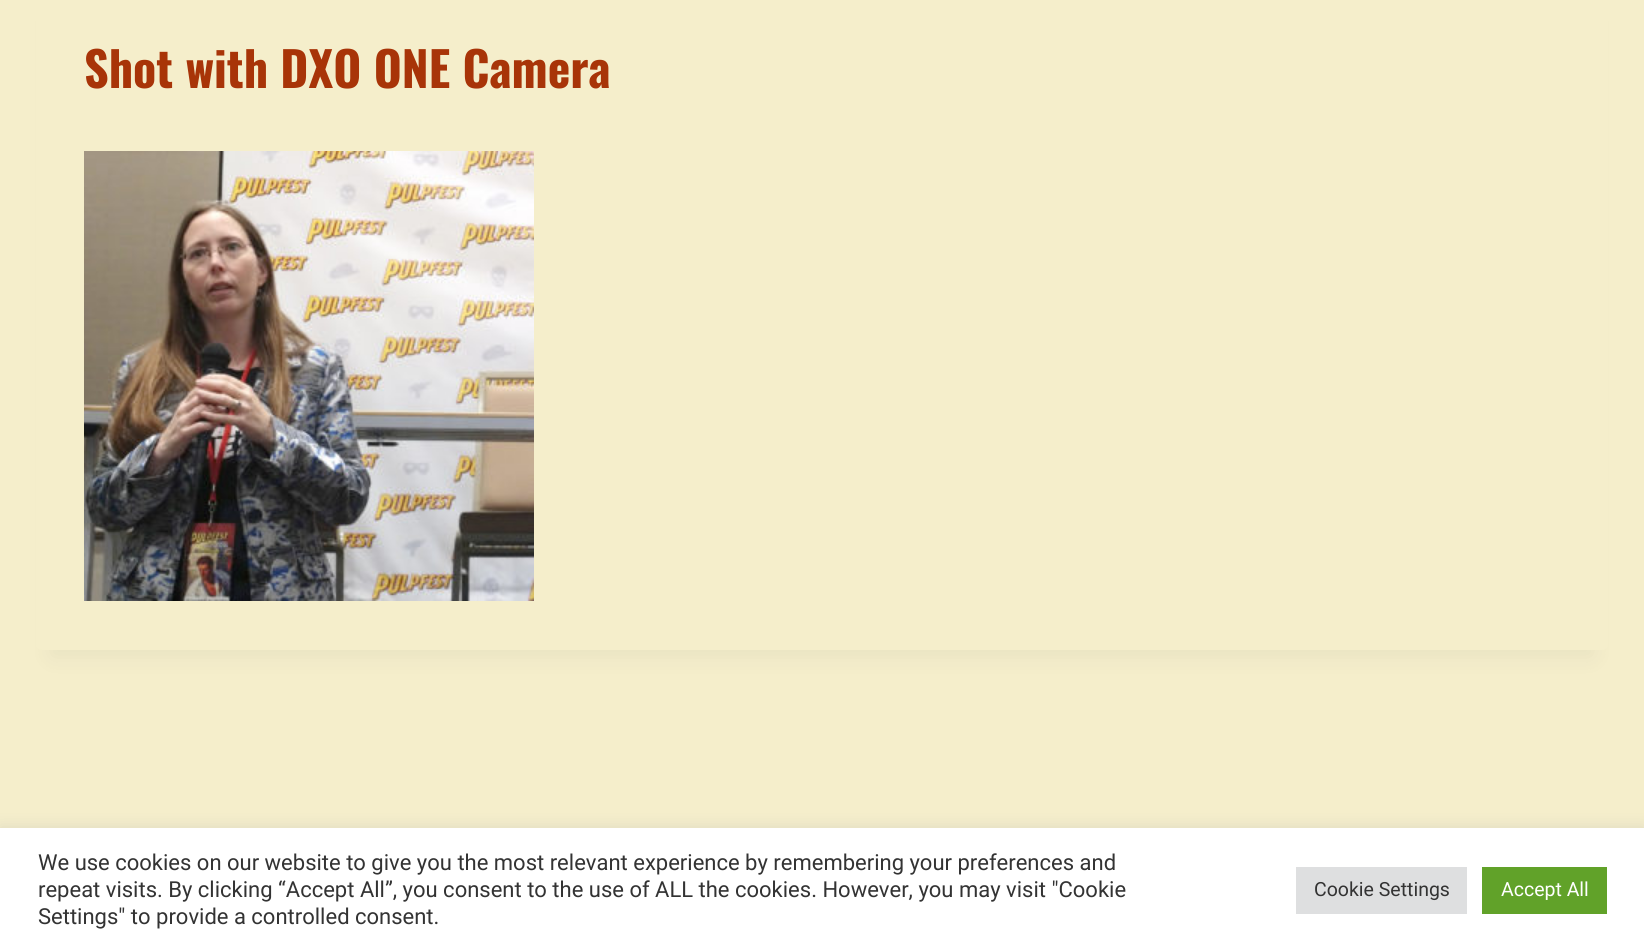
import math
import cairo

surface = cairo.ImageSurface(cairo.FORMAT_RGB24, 1644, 950)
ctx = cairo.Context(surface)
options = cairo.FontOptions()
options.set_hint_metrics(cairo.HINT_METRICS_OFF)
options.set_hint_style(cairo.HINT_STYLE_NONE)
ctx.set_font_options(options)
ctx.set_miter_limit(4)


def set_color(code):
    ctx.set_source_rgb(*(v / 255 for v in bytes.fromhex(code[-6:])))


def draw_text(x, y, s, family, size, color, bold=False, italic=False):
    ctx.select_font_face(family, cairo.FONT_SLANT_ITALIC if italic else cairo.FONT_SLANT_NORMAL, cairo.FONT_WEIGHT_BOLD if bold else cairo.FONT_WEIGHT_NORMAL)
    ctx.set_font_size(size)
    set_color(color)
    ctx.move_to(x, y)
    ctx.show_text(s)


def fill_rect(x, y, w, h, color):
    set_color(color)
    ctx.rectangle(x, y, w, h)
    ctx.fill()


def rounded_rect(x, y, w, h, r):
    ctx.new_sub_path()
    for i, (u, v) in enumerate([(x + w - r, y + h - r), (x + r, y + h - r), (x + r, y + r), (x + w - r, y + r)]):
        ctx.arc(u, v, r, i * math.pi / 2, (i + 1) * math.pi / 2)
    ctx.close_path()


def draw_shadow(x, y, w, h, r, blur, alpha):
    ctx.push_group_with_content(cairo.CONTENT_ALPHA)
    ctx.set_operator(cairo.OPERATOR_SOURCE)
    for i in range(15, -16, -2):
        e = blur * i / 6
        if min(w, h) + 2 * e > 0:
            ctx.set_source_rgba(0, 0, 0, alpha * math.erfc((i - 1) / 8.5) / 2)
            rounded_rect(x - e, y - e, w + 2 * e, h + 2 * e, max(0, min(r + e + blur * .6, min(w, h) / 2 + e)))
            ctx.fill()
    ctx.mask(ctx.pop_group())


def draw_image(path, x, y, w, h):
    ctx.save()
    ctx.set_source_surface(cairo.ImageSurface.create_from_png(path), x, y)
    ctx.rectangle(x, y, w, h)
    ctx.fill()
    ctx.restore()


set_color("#f5eecb")
ctx.paint()
set_color("#000000")
draw_shadow(51, 21, 1542, 636, 0, 11, 0.05)
set_color("#f5eecb")
rounded_rect(36, -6, 1572, 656, 6)
ctx.fill()
draw_text(84, 88, "Shot with DXO ONE Camera", "Oswald", 48, "#a83408", bold=True)
draw_image("assets/img1.png", 84, 151, 450, 450)
set_color("#acabab")
draw_shadow(0, 827, 1644, 123, 0, 7.5, 0.3)
fill_rect(0, 828, 1644, 122, "#ffffff")
draw_text(38, 870, "We use cookies on our website to give you the most relevant experience by remembering your preferences and", "Roboto", 22, "#333333")
draw_text(38, 897, "repeat visits. By clicking “Accept All”, you consent to the use of ALL the cookies. However, you may visit \"Cookie", "Roboto", 22, "#333333")
draw_text(38, 924, "Settings\" to provide a controlled consent.", "Roboto", 22, "#333333")
fill_rect(1296, 867, 171, 47, "#dedfe0")
draw_text(1314, 896, "Cookie Settings", "Roboto", 19.5, "#333333")
fill_rect(1482, 867, 125, 47, "#61a229")
draw_text(1501, 896, "Accept All", "Roboto", 19.5, "#ffffff")
surface.write_to_png("output.png")
